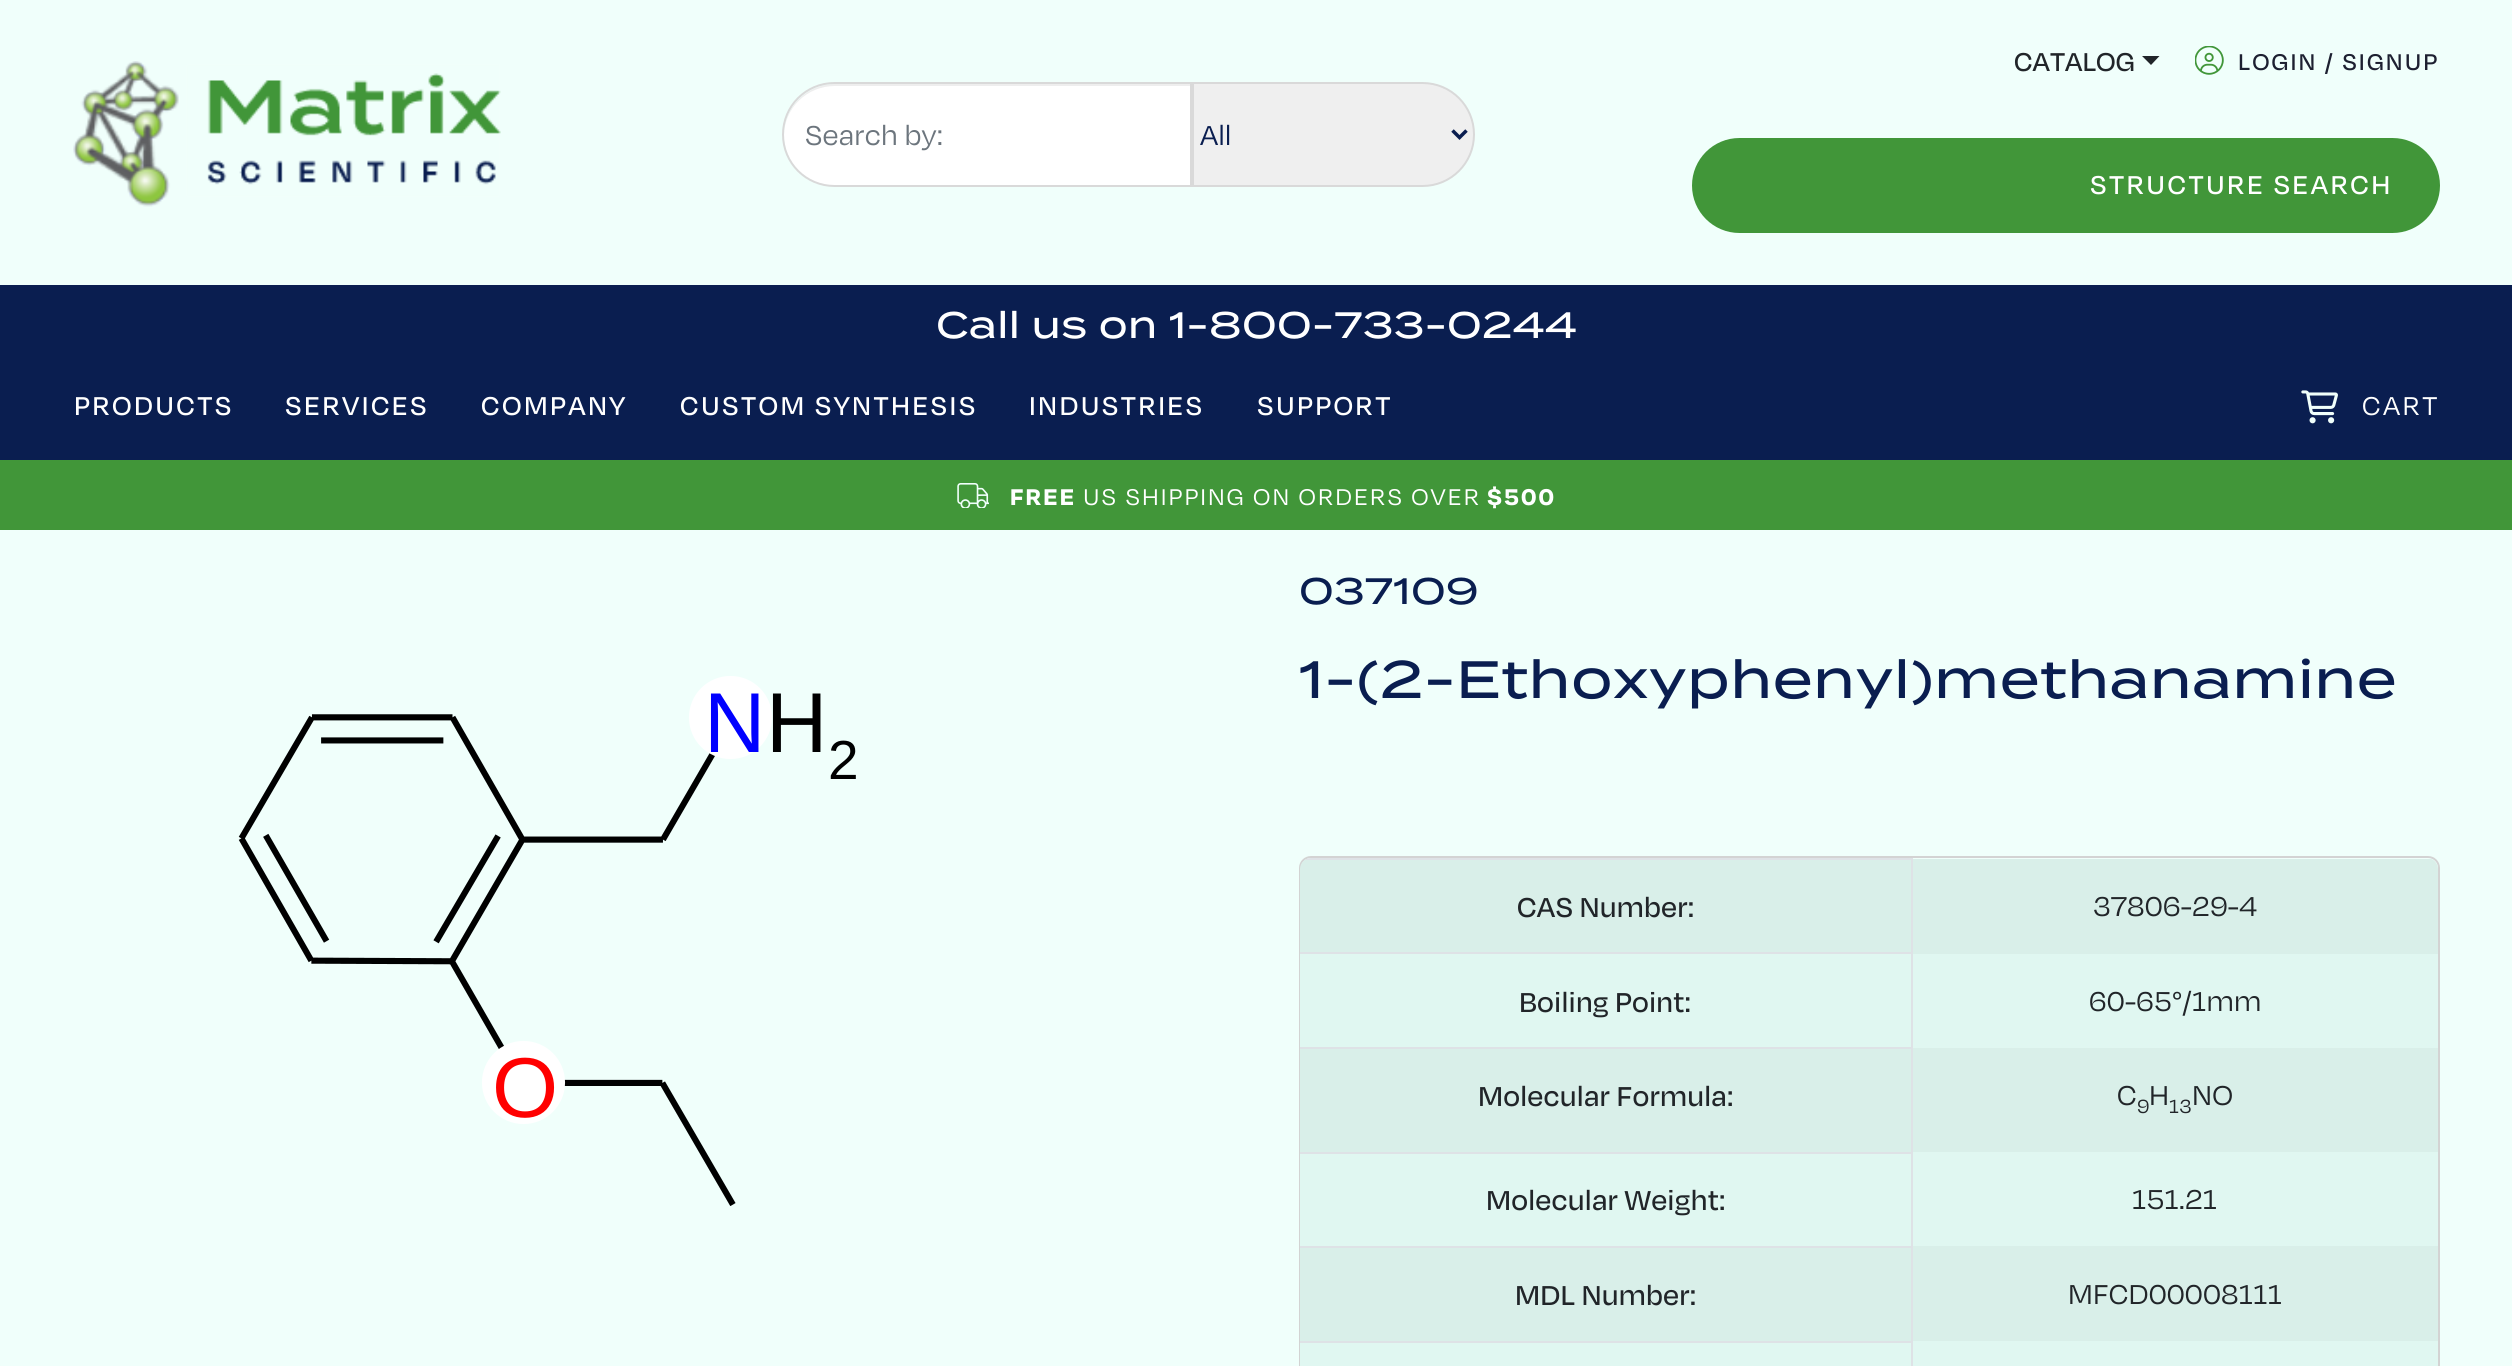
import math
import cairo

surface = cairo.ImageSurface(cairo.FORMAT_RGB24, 2512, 1366)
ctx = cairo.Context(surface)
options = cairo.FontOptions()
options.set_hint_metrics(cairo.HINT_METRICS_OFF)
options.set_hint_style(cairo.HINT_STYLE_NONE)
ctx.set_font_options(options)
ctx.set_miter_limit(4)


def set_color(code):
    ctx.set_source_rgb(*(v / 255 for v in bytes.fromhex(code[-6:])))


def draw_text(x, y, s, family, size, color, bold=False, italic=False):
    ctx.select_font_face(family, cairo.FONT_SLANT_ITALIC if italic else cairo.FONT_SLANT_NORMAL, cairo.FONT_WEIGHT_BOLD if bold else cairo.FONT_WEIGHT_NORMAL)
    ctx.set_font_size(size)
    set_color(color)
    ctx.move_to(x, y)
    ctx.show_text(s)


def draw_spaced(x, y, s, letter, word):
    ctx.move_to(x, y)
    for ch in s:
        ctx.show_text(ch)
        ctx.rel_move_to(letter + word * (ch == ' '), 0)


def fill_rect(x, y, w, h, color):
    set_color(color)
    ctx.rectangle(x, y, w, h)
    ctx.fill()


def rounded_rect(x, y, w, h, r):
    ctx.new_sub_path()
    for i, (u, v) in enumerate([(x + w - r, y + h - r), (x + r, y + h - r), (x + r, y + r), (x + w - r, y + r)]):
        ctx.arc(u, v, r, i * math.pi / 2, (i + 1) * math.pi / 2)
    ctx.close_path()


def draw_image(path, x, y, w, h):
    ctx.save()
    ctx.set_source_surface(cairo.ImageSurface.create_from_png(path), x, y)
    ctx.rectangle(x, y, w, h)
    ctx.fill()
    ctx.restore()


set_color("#f0fffb")
ctx.paint()
draw_image("assets/img1.png", 73, 61, 428, 146)
set_color("#ffffff")
ctx.new_path()
ctx.move_to(835, 84)
ctx.line_to(1190, 84)
ctx.line_to(1190, 186)
ctx.line_to(835, 186)
ctx.curve_to(807, 186, 784, 163, 784, 135)
ctx.curve_to(784, 107, 807, 84, 835, 84)
ctx.close_path()
ctx.fill()
ctx.set_source_rgba(0, 0, 0, 0.07)
ctx.new_path()
ctx.move_to(835, 86)
ctx.line_to(1190, 86)
ctx.line_to(1190, 84)
ctx.line_to(835, 84)
ctx.curve_to(807, 84, 784, 107, 784, 135)
ctx.line_to(784, 136)
ctx.curve_to(784, 108, 807, 86, 835, 86)
ctx.close_path()
ctx.fill()
ctx.new_path()
ctx.move_to(834.5, 83)
ctx.line_to(1191, 83)
ctx.line_to(1191, 186)
ctx.line_to(834.5, 186)
ctx.curve_to(806, 186, 783, 163, 783, 134.5)
ctx.curve_to(783, 106, 806, 83, 834.5, 83)
ctx.close_path()
set_color("#d9d9d9")
ctx.stroke()
ctx.select_font_face("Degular")
ctx.set_font_size(31.5)
set_color("#6c757d")
draw_spaced(805, 145, "Search by:", 0.2, 0)
set_color("#efefef")
ctx.new_path()
ctx.move_to(1193, 83)
ctx.line_to(1422.5, 83)
ctx.curve_to(1451, 83, 1474, 106, 1474, 134.5)
ctx.curve_to(1474, 163, 1451, 186, 1422.5, 186)
ctx.line_to(1193, 186)
ctx.close_path()
ctx.fill_preserve()
set_color("#d9d9d9")
ctx.stroke()
ctx.new_path()
ctx.move_to(1452.5, 130.5)
ctx.line_to(1459.5, 137.5)
ctx.line_to(1466.5, 130.5)
set_color("#0a1e50")
ctx.set_line_width(3.5)
ctx.stroke()
draw_text(1200, 145, "All", "Degular", 31.5, "#0a1e50")
draw_text(2014, 71, "CATALOG", "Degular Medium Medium", 29.75, "#212529")
ctx.new_path()
ctx.move_to(2142, 56)
ctx.line_to(2159.5, 56)
ctx.line_to(2151, 65)
ctx.close_path()
ctx.fill()
draw_image("assets/img2.png", 2195, 46, 29, 29)
ctx.set_font_size(26.25)
set_color("#1d2031")
draw_spaced(2238, 70, "LOGIN / SIGNUP", 2.1, 0)
set_color("#419639")
rounded_rect(1692, 138, 748, 95, 47.5)
ctx.fill()
ctx.set_font_size(29.75)
set_color("#ffffff")
draw_spaced(2090, 194, "STRUCTURE SEARCH", 2.4, 0)
fill_rect(0, 285, 2512, 175, "#0a1e50")
ctx.select_font_face("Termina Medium")
ctx.set_font_size(36.75)
set_color("#ffffff")
draw_spaced(936, 338, "Call us on 1-800-733-0244", 0.4, 0)
ctx.select_font_face("Degular Medium Medium")
ctx.set_font_size(29.75)
draw_spaced(74, 415, "PRODUCTS", 2.4, 0)
draw_spaced(285, 415, "SERVICES", 2.4, 0)
draw_spaced(481, 415, "COMPANY", 2.4, 0)
draw_spaced(680, 415, "CUSTOM SYNTHESIS", 2.4, 0)
draw_spaced(1029, 415, "INDUSTRIES", 2.4, 0)
draw_spaced(1257, 415, "SUPPORT", 2.4, 0)
draw_image("assets/img3.png", 2301, 390, 37, 34)
ctx.select_font_face("Degular")
draw_spaced(2362, 415, "CART", 2.4, 0)
fill_rect(0, 460, 2512, 70, "#419639")
draw_image("assets/img4.png", 957, 483, 32, 25)
ctx.select_font_face("Degular", cairo.FONT_SLANT_NORMAL, cairo.FONT_WEIGHT_BOLD)
ctx.set_font_size(26.25)
set_color("#ffffff")
draw_spaced(1010, 505, "FREE", 2.1, 0)
ctx.select_font_face("Degular")
draw_spaced(1083, 505, "US SHIPPING ON ORDERS OVER", 2.1, 0)
ctx.select_font_face("Degular", cairo.FONT_SLANT_NORMAL, cairo.FONT_WEIGHT_BOLD)
draw_spaced(1487, 505, "$500", 2.1, 0)
draw_image("assets/img5.png", 238, 676, 534, 530)
ctx.select_font_face("Liberation Sans")
ctx.set_font_size(85)
set_color("#0000ff")
draw_spaced(704, 752, "N", 1, 0)
set_color("#000000")
draw_spaced(766, 752, "H", 1, 0)
ctx.set_font_size(55)
draw_spaced(828, 779, "2", 1, 0)
ctx.set_font_size(85)
set_color("#ff0000")
draw_spaced(492, 1117, "O", 1, 0)
ctx.select_font_face("Termina Medium")
ctx.set_font_size(36.75)
set_color("#0a1e50")
draw_spaced(1299, 604, "037109", 0.4, 0)
ctx.set_font_size(52.5)
draw_spaced(1299, 698, "1-(2-Ethoxyphenyl)methanamine", 0.7, 0)
rounded_rect(1300, 857, 1139, 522, 11)
set_color("#d3d3d3")
ctx.set_line_width(2)
ctx.stroke()
ctx.save()
rounded_rect(1300, 858, 1138, 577, 11)
ctx.clip()
fill_rect(1300, 859, 1138, 95, "#d9efe9")
fill_rect(1300, 858, 613, 2, "#dee2e6")
ctx.restore()
fill_rect(1300, 952, 613, 2, "#dee2e6")
fill_rect(1300, 954, 1138, 94, "#e0f7f1")
fill_rect(1300, 1048, 1138, 104, "#d9efe9")
fill_rect(1300, 1047, 613, 2, "#dee2e6")
fill_rect(1300, 1152, 1138, 94, "#e0f7f1")
fill_rect(1300, 1152, 613, 2, "#dee2e6")
fill_rect(1300, 1246, 1138, 95, "#d9efe9")
fill_rect(1300, 1246, 613, 2, "#dee2e6")
fill_rect(1300, 1341, 1138, 25, "#e0f7f1")
fill_rect(1300, 1341, 613, 2, "#dee2e6")
fill_rect(1911, 1341, 2, 25, "#dee2e6")
fill_rect(1911, 1246, 2, 96, "#dee2e6")
fill_rect(1911, 1152, 2, 96, "#dee2e6")
fill_rect(1911, 1047, 2, 106, "#dee2e6")
fill_rect(1911, 952, 2, 96, "#dee2e6")
fill_rect(1911, 858, 2, 96, "#dee2e6")
ctx.select_font_face("Degular Medium Medium")
ctx.set_font_size(31.5)
set_color("#212529")
draw_spaced(1517, 917, "CAS Number:", 0.2, 0)
ctx.select_font_face("Degular")
draw_spaced(2093, 916, "37806-29-4", 0.2, 0)
ctx.select_font_face("Degular Medium Medium")
draw_spaced(1519, 1012, "Boiling Point:", 0.2, 0)
ctx.select_font_face("Degular")
draw_spaced(2089, 1011, "60-65°/1mm", 0.2, 0)
ctx.select_font_face("Degular Medium Medium")
draw_spaced(1478, 1106, "Molecular Formula:", 0.2, 0)
ctx.select_font_face("Degular")
draw_spaced(2117, 1105, "C", 0.2, 0)
draw_spaced(2149, 1105, "H", 0.2, 0)
draw_spaced(2192, 1105, "NO", 0.2, 0)
ctx.set_font_size(22)
draw_spaced(2137, 1113, "9", 0.2, 0)
draw_spaced(2169, 1113, "13", 0.2, 0)
ctx.select_font_face("Degular Medium Medium")
ctx.set_font_size(31.5)
draw_spaced(1486, 1210, "Molecular Weight:", 0.2, 0)
ctx.select_font_face("Degular")
draw_spaced(2132, 1209, "151.21", 0.2, 0)
ctx.select_font_face("Degular Medium Medium")
draw_spaced(1515, 1305, "MDL Number:", 0.2, 0)
ctx.select_font_face("Degular")
draw_spaced(2068, 1304, "MFCD00008111", 0.2, 0)
surface.write_to_png("output.png")
